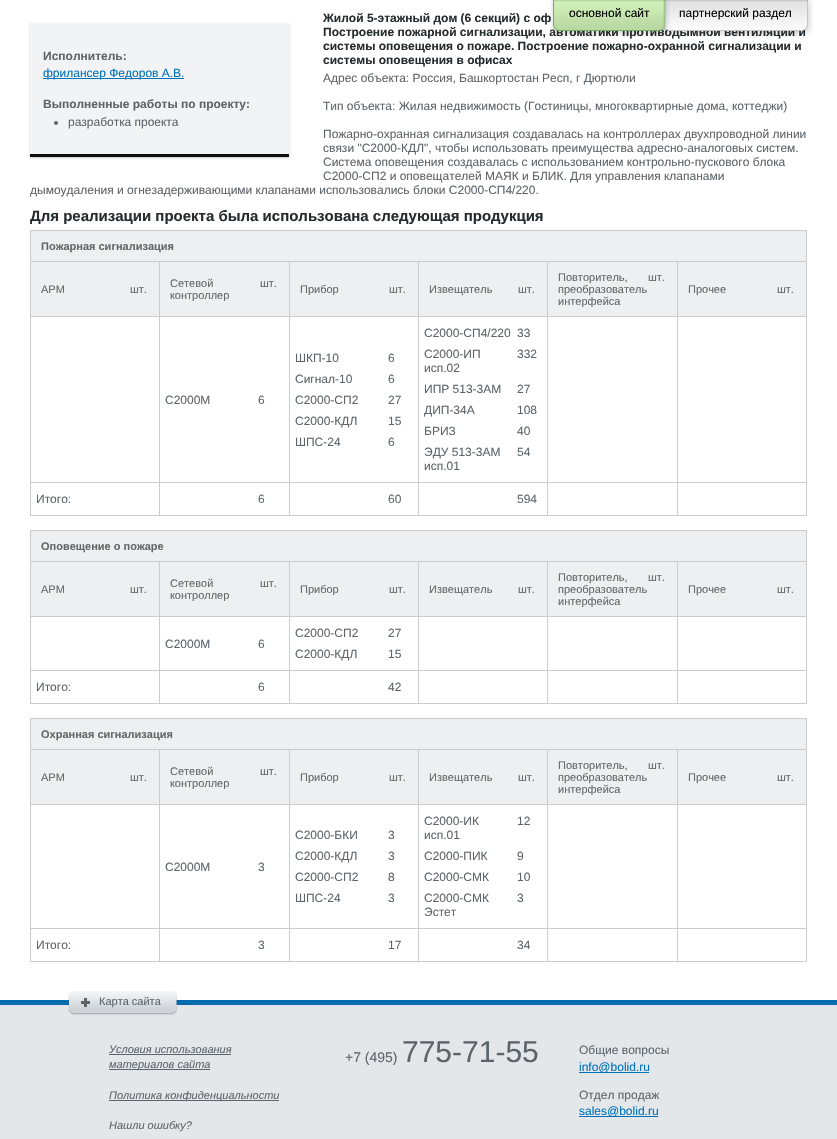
#include "include/core/SkBlurTypes.h"
#include "include/core/SkCanvas.h"
#include "include/core/SkData.h"
#include "include/core/SkFont.h"
#include "include/core/SkFontMgr.h"
#include "include/core/SkImage.h"
#include "include/core/SkMaskFilter.h"
#include "include/core/SkPaint.h"
#include "include/core/SkPathBuilder.h"
#include "include/core/SkTextBlob.h"
#include "include/effects/SkDashPathEffect.h"
#include "include/effects/SkGradientShader.h"
#include "include/utils/SkParsePath.h"

extern sk_sp<SkFontMgr> fontMgr;

static SkFont font(const char* family, int weight, float size, bool italic = false) {
    SkFontStyle style(weight, SkFontStyle::kNormal_Width,
        italic ? SkFontStyle::kItalic_Slant : SkFontStyle::kUpright_Slant);
    SkFont result(fontMgr->matchFamilyStyle(family, style), size);
    result.setSubpixel(true);
    return result;
}

static void drawLabel(SkCanvas* canvas, const char* s, float x, float y, const SkFont& font, SkColor color) {
    SkPaint ink(SkColor4f::FromColor(color));
    ink.setAntiAlias(true);
    canvas->drawString(s, x, y, font, ink);
}

static void fillRect(SkCanvas* canvas, float x, float y, float w, float h, SkColor color) {
    SkPaint ink(SkColor4f::FromColor(color));
    ink.setAntiAlias(true);
    canvas->drawRect(SkRect::MakeXYWH(x, y, w, h), ink);
}

static void drawPhoto(SkCanvas* canvas, const char* path, float x, float y, float w, float h) {
    auto image = SkImages::DeferredFromEncodedData(SkData::MakeFromFileName(path));
    canvas->drawImageRect(image, SkRect::MakeXYWH(x, y, w, h), SkSamplingOptions());
}

void draw(SkCanvas* canvas) {
    SkPaint paint;
    paint.setAntiAlias(true);
    canvas->clear(0xFFFFFFFF);
    SkFont font1 = font("Liberation Sans", 700, 12);
    drawLabel(canvas, "Построение пожарной сигнализации, автоматики противодымной вентиляции и", 323, 36, font1, 0xFF252C30);
    drawPhoto(canvas, "assets/img3.png", 796, 0, 17, 37);
    drawPhoto(canvas, "assets/img4.png", 661, 0, 136, 37);
    drawPhoto(canvas, "assets/img1.png", 652, 0, 18, 37);
    drawLabel(canvas, "Жилой 5-этажный дом (6 секций) с оф", 323, 22, font1, 0xFF252C30);
    drawPhoto(canvas, "assets/img2.png", 550, 0, 104, 37);
    SkFont font2 = font("Liberation Sans", 400, 12);
    drawLabel(canvas, "основной сайт", 569, 17, font2, 0xFF000000);
    drawLabel(canvas, "партнерский раздел", 679, 17, font2, 0xFF000000);
    drawLabel(canvas, "системы оповещения о пожаре. Построение пожарно-охранной сигнализации и", 323, 50, font1, 0xFF252C30);
    drawLabel(canvas, "системы оповещения в офисах", 323, 64, font1, 0xFF252C30);
    paint.setColor(0xFFCCCCCC);
    paint.setMaskFilter(SkMaskFilter::MakeBlur(kNormal_SkBlurStyle, 1));
    canvas->drawRect(SkRect::MakeXYWH(30, 24, 259, 134), paint);
    paint.setMaskFilter(nullptr);
    fillRect(canvas, 30, 23, 259, 131, 0xFFF2F3F5);
    fillRect(canvas, 30, 154, 259, 3, 0xFF0B0E10);
    drawLabel(canvas, "Исполнитель:", 43, 60, font1, 0xFF5E656A);
    fillRect(canvas, 43, 78, 141, 1, 0xFF0072BC);
    drawLabel(canvas, "фрилансер Федоров А.В.", 43, 77, font2, 0xFF0072BC);
    drawLabel(canvas, "Выполненные работы по проекту:", 43, 108, font1, 0xFF5E656A);
    paint.setColor(0xFF5E656A);
    canvas->drawCircle(56, 123, 2, paint);
    drawLabel(canvas, "разработка проекта", 68, 126, font2, 0xFF5E656A);
    drawLabel(canvas, "Адрес объекта: Россия, Башкортостан Респ, г Дюртюли", 323, 82, font2, 0xFF5E656A);
    drawLabel(canvas, "Тип объекта: Жилая недвижимость (Гостиницы, многоквартирные дома, коттеджи)", 323, 110, font2, 0xFF5E656A);
    drawLabel(canvas, "Пожарно-охранная сигнализация создавалась на контроллерах двухпроводной линии", 323, 138, font2, 0xFF5E656A);
    drawLabel(canvas, "связи \"С2000-КДЛ\", чтобы использовать преимущества адресно-аналоговых систем.", 323, 152, font2, 0xFF5E656A);
    drawLabel(canvas, "Система оповещения создавалась с использованием контрольно-пускового блока", 323, 166, font2, 0xFF5E656A);
    drawLabel(canvas, "С2000-СП2 и оповещателей МАЯК и БЛИК. Для управления клапанами", 323, 180, font2, 0xFF5E656A);
    drawLabel(canvas, "дымоудаления и огнезадерживающими клапанами использовались блоки С2000-СП4/220.", 30, 194, font2, 0xFF5E656A);
    SkFont font3 = font("Liberation Sans", 700, 15);
    drawLabel(canvas, "Для реализации проекта была использована следующая продукция", 30, 221, font3, 0xFF252C30);
    fillRect(canvas, 31, 231, 775, 30, 0xFFEEEFF1);
    fillRect(canvas, 30, 230, 777, 1, 0xFFCCCCCC);
    fillRect(canvas, 677, 261, 130, 1, 0xFFCCCCCC);
    fillRect(canvas, 677, 316, 130, 1, 0xFFCCCCCC);
    fillRect(canvas, 677, 482, 130, 1, 0xFFCCCCCC);
    fillRect(canvas, 806, 482, 1, 34, 0xFFCCCCCC);
    fillRect(canvas, 806, 316, 1, 167, 0xFFCCCCCC);
    fillRect(canvas, 806, 261, 1, 56, 0xFFCCCCCC);
    fillRect(canvas, 806, 230, 1, 32, 0xFFCCCCCC);
    fillRect(canvas, 677, 515, 130, 1, 0xFFCCCCCC);
    fillRect(canvas, 677, 482, 1, 34, 0xFFCCCCCC);
    fillRect(canvas, 547, 482, 131, 1, 0xFFCCCCCC);
    fillRect(canvas, 677, 316, 1, 167, 0xFFCCCCCC);
    fillRect(canvas, 547, 316, 131, 1, 0xFFCCCCCC);
    fillRect(canvas, 677, 261, 1, 56, 0xFFCCCCCC);
    fillRect(canvas, 547, 261, 131, 1, 0xFFCCCCCC);
    fillRect(canvas, 547, 515, 131, 1, 0xFFCCCCCC);
    fillRect(canvas, 547, 482, 1, 34, 0xFFCCCCCC);
    fillRect(canvas, 418, 482, 130, 1, 0xFFCCCCCC);
    fillRect(canvas, 547, 316, 1, 167, 0xFFCCCCCC);
    fillRect(canvas, 418, 316, 130, 1, 0xFFCCCCCC);
    fillRect(canvas, 547, 261, 1, 56, 0xFFCCCCCC);
    fillRect(canvas, 418, 261, 130, 1, 0xFFCCCCCC);
    fillRect(canvas, 418, 515, 130, 1, 0xFFCCCCCC);
    fillRect(canvas, 418, 482, 1, 34, 0xFFCCCCCC);
    fillRect(canvas, 289, 482, 130, 1, 0xFFCCCCCC);
    fillRect(canvas, 418, 316, 1, 167, 0xFFCCCCCC);
    fillRect(canvas, 289, 316, 130, 1, 0xFFCCCCCC);
    fillRect(canvas, 418, 261, 1, 56, 0xFFCCCCCC);
    fillRect(canvas, 289, 261, 130, 1, 0xFFCCCCCC);
    fillRect(canvas, 289, 515, 130, 1, 0xFFCCCCCC);
    fillRect(canvas, 289, 482, 1, 34, 0xFFCCCCCC);
    fillRect(canvas, 159, 482, 131, 1, 0xFFCCCCCC);
    fillRect(canvas, 289, 316, 1, 167, 0xFFCCCCCC);
    fillRect(canvas, 159, 316, 131, 1, 0xFFCCCCCC);
    fillRect(canvas, 289, 261, 1, 56, 0xFFCCCCCC);
    fillRect(canvas, 159, 261, 131, 1, 0xFFCCCCCC);
    fillRect(canvas, 159, 515, 131, 1, 0xFFCCCCCC);
    fillRect(canvas, 159, 482, 1, 34, 0xFFCCCCCC);
    fillRect(canvas, 30, 482, 130, 1, 0xFFCCCCCC);
    fillRect(canvas, 159, 316, 1, 167, 0xFFCCCCCC);
    fillRect(canvas, 30, 316, 130, 1, 0xFFCCCCCC);
    fillRect(canvas, 159, 261, 1, 56, 0xFFCCCCCC);
    fillRect(canvas, 30, 261, 130, 1, 0xFFCCCCCC);
    fillRect(canvas, 30, 515, 130, 1, 0xFFCCCCCC);
    fillRect(canvas, 30, 482, 1, 34, 0xFFCCCCCC);
    fillRect(canvas, 30, 316, 1, 167, 0xFFCCCCCC);
    fillRect(canvas, 30, 261, 1, 56, 0xFFCCCCCC);
    fillRect(canvas, 30, 230, 1, 32, 0xFFCCCCCC);
    SkFont font4 = font("Liberation Sans", 700, 11);
    drawLabel(canvas, "Пожарная сигнализация", 41, 250, font4, 0xFF666666);
    fillRect(canvas, 31, 262, 128, 54, 0xFFEEEFF1);
    SkFont font5 = font("Liberation Sans", 400, 11);
    drawLabel(canvas, "АРМ", 41, 293, font5, 0xFF666666);
    drawLabel(canvas, "шт.", 130, 293, font5, 0xFF666666);
    fillRect(canvas, 160, 262, 129, 54, 0xFFEEEFF1);
    drawLabel(canvas, "Сетевой", 170, 287, font5, 0xFF666666);
    canvas->save();
    canvas->clipRect(SkRect::MakeXYWH(170, 277, 90, 24));
    drawLabel(canvas, "контроллер", 170, 299, font5, 0xFF666666);
    canvas->restore();
    drawLabel(canvas, "шт.", 260, 287, font5, 0xFF666666);
    fillRect(canvas, 290, 262, 128, 54, 0xFFEEEFF1);
    canvas->save();
    canvas->clipRect(SkRect::MakeXYWH(300, 283, 89, 12));
    drawLabel(canvas, "Прибор", 300, 293, font5, 0xFF666666);
    canvas->restore();
    drawLabel(canvas, "шт.", 389, 293, font5, 0xFF666666);
    fillRect(canvas, 419, 262, 128, 54, 0xFFEEEFF1);
    drawLabel(canvas, "Извещатель", 429, 293, font5, 0xFF666666);
    drawLabel(canvas, "шт.", 518, 293, font5, 0xFF666666);
    fillRect(canvas, 548, 262, 129, 54, 0xFFEEEFF1);
    drawLabel(canvas, "Повторитель,", 558, 281, font5, 0xFF666666);
    drawLabel(canvas, "преобразователь", 558, 293, font5, 0xFF666666);
    canvas->save();
    canvas->clipRect(SkRect::MakeXYWH(558, 271, 89, 36));
    drawLabel(canvas, "интерфейса", 558, 305, font5, 0xFF666666);
    canvas->restore();
    drawLabel(canvas, "шт.", 648, 281, font5, 0xFF666666);
    fillRect(canvas, 678, 262, 128, 54, 0xFFEEEFF1);
    drawLabel(canvas, "Прочее", 688, 293, font5, 0xFF666666);
    drawLabel(canvas, "шт.", 777, 293, font5, 0xFF666666);
    drawLabel(canvas, "С2000М", 165, 404, font2, 0xFF5E656A);
    drawLabel(canvas, "6", 258, 404, font2, 0xFF5E656A);
    drawLabel(canvas, "ШКП-10", 295, 362, font2, 0xFF5E656A);
    drawLabel(canvas, "6", 388, 362, font2, 0xFF5E656A);
    drawLabel(canvas, "Сигнал-10", 295, 383, font2, 0xFF5E656A);
    drawLabel(canvas, "6", 388, 383, font2, 0xFF5E656A);
    drawLabel(canvas, "С2000-СП2", 295, 404, font2, 0xFF5E656A);
    drawLabel(canvas, "27", 388, 404, font2, 0xFF5E656A);
    drawLabel(canvas, "С2000-КДЛ", 295, 425, font2, 0xFF5E656A);
    drawLabel(canvas, "15", 388, 425, font2, 0xFF5E656A);
    drawLabel(canvas, "ШПС-24", 295, 446, font2, 0xFF5E656A);
    drawLabel(canvas, "6", 388, 446, font2, 0xFF5E656A);
    drawLabel(canvas, "С2000-СП4/220", 424, 337, font2, 0xFF5E656A);
    drawLabel(canvas, "33", 517, 337, font2, 0xFF5E656A);
    drawLabel(canvas, "С2000-ИП", 424, 358, font2, 0xFF5E656A);
    drawLabel(canvas, "исп.02", 424, 372, font2, 0xFF5E656A);
    drawLabel(canvas, "332", 517, 358, font2, 0xFF5E656A);
    drawLabel(canvas, "ИПР 513-3АМ", 424, 393, font2, 0xFF5E656A);
    drawLabel(canvas, "27", 517, 393, font2, 0xFF5E656A);
    drawLabel(canvas, "ДИП-34А", 424, 414, font2, 0xFF5E656A);
    drawLabel(canvas, "108", 517, 414, font2, 0xFF5E656A);
    drawLabel(canvas, "БРИЗ", 424, 435, font2, 0xFF5E656A);
    drawLabel(canvas, "40", 517, 435, font2, 0xFF5E656A);
    drawLabel(canvas, "ЭДУ 513-3АМ", 424, 456, font2, 0xFF5E656A);
    drawLabel(canvas, "исп.01", 424, 470, font2, 0xFF5E656A);
    drawLabel(canvas, "54", 517, 456, font2, 0xFF5E656A);
    drawLabel(canvas, "Итого:", 36, 503, font2, 0xFF5E656A);
    drawLabel(canvas, "6", 258, 503, font2, 0xFF5E656A);
    drawLabel(canvas, "60", 388, 503, font2, 0xFF5E656A);
    drawLabel(canvas, "594", 517, 503, font2, 0xFF5E656A);
    fillRect(canvas, 31, 531, 775, 30, 0xFFEEEFF1);
    fillRect(canvas, 30, 530, 777, 1, 0xFFCCCCCC);
    fillRect(canvas, 677, 561, 130, 1, 0xFFCCCCCC);
    fillRect(canvas, 677, 616, 130, 1, 0xFFCCCCCC);
    fillRect(canvas, 677, 670, 130, 1, 0xFFCCCCCC);
    fillRect(canvas, 806, 670, 1, 34, 0xFFCCCCCC);
    fillRect(canvas, 806, 616, 1, 55, 0xFFCCCCCC);
    fillRect(canvas, 806, 561, 1, 56, 0xFFCCCCCC);
    fillRect(canvas, 806, 530, 1, 32, 0xFFCCCCCC);
    fillRect(canvas, 677, 703, 130, 1, 0xFFCCCCCC);
    fillRect(canvas, 677, 670, 1, 34, 0xFFCCCCCC);
    fillRect(canvas, 547, 670, 131, 1, 0xFFCCCCCC);
    fillRect(canvas, 677, 616, 1, 55, 0xFFCCCCCC);
    fillRect(canvas, 547, 616, 131, 1, 0xFFCCCCCC);
    fillRect(canvas, 677, 561, 1, 56, 0xFFCCCCCC);
    fillRect(canvas, 547, 561, 131, 1, 0xFFCCCCCC);
    fillRect(canvas, 547, 703, 131, 1, 0xFFCCCCCC);
    fillRect(canvas, 547, 670, 1, 34, 0xFFCCCCCC);
    fillRect(canvas, 418, 670, 130, 1, 0xFFCCCCCC);
    fillRect(canvas, 547, 616, 1, 55, 0xFFCCCCCC);
    fillRect(canvas, 418, 616, 130, 1, 0xFFCCCCCC);
    fillRect(canvas, 547, 561, 1, 56, 0xFFCCCCCC);
    fillRect(canvas, 418, 561, 130, 1, 0xFFCCCCCC);
    fillRect(canvas, 418, 703, 130, 1, 0xFFCCCCCC);
    fillRect(canvas, 418, 670, 1, 34, 0xFFCCCCCC);
    fillRect(canvas, 289, 670, 130, 1, 0xFFCCCCCC);
    fillRect(canvas, 418, 616, 1, 55, 0xFFCCCCCC);
    fillRect(canvas, 289, 616, 130, 1, 0xFFCCCCCC);
    fillRect(canvas, 418, 561, 1, 56, 0xFFCCCCCC);
    fillRect(canvas, 289, 561, 130, 1, 0xFFCCCCCC);
    fillRect(canvas, 289, 703, 130, 1, 0xFFCCCCCC);
    fillRect(canvas, 289, 670, 1, 34, 0xFFCCCCCC);
    fillRect(canvas, 159, 670, 131, 1, 0xFFCCCCCC);
    fillRect(canvas, 289, 616, 1, 55, 0xFFCCCCCC);
    fillRect(canvas, 159, 616, 131, 1, 0xFFCCCCCC);
    fillRect(canvas, 289, 561, 1, 56, 0xFFCCCCCC);
    fillRect(canvas, 159, 561, 131, 1, 0xFFCCCCCC);
    fillRect(canvas, 159, 703, 131, 1, 0xFFCCCCCC);
    fillRect(canvas, 159, 670, 1, 34, 0xFFCCCCCC);
    fillRect(canvas, 30, 670, 130, 1, 0xFFCCCCCC);
    fillRect(canvas, 159, 616, 1, 55, 0xFFCCCCCC);
    fillRect(canvas, 30, 616, 130, 1, 0xFFCCCCCC);
    fillRect(canvas, 159, 561, 1, 56, 0xFFCCCCCC);
    fillRect(canvas, 30, 561, 130, 1, 0xFFCCCCCC);
    fillRect(canvas, 30, 703, 130, 1, 0xFFCCCCCC);
    fillRect(canvas, 30, 670, 1, 34, 0xFFCCCCCC);
    fillRect(canvas, 30, 616, 1, 55, 0xFFCCCCCC);
    fillRect(canvas, 30, 561, 1, 56, 0xFFCCCCCC);
    fillRect(canvas, 30, 530, 1, 32, 0xFFCCCCCC);
    drawLabel(canvas, "Оповещение о пожаре", 41, 550, font4, 0xFF666666);
    fillRect(canvas, 31, 562, 128, 54, 0xFFEEEFF1);
    drawLabel(canvas, "АРМ", 41, 593, font5, 0xFF666666);
    drawLabel(canvas, "шт.", 130, 593, font5, 0xFF666666);
    fillRect(canvas, 160, 562, 129, 54, 0xFFEEEFF1);
    drawLabel(canvas, "Сетевой", 170, 587, font5, 0xFF666666);
    canvas->save();
    canvas->clipRect(SkRect::MakeXYWH(170, 577, 90, 24));
    drawLabel(canvas, "контроллер", 170, 599, font5, 0xFF666666);
    canvas->restore();
    drawLabel(canvas, "шт.", 260, 587, font5, 0xFF666666);
    fillRect(canvas, 290, 562, 128, 54, 0xFFEEEFF1);
    canvas->save();
    canvas->clipRect(SkRect::MakeXYWH(300, 583, 89, 12));
    drawLabel(canvas, "Прибор", 300, 593, font5, 0xFF666666);
    canvas->restore();
    drawLabel(canvas, "шт.", 389, 593, font5, 0xFF666666);
    fillRect(canvas, 419, 562, 128, 54, 0xFFEEEFF1);
    drawLabel(canvas, "Извещатель", 429, 593, font5, 0xFF666666);
    drawLabel(canvas, "шт.", 518, 593, font5, 0xFF666666);
    fillRect(canvas, 548, 562, 129, 54, 0xFFEEEFF1);
    drawLabel(canvas, "Повторитель,", 558, 581, font5, 0xFF666666);
    drawLabel(canvas, "преобразователь", 558, 593, font5, 0xFF666666);
    canvas->save();
    canvas->clipRect(SkRect::MakeXYWH(558, 571, 89, 36));
    drawLabel(canvas, "интерфейса", 558, 605, font5, 0xFF666666);
    canvas->restore();
    drawLabel(canvas, "шт.", 648, 581, font5, 0xFF666666);
    fillRect(canvas, 678, 562, 128, 54, 0xFFEEEFF1);
    drawLabel(canvas, "Прочее", 688, 593, font5, 0xFF666666);
    drawLabel(canvas, "шт.", 777, 593, font5, 0xFF666666);
    drawLabel(canvas, "С2000М", 165, 648, font2, 0xFF5E656A);
    drawLabel(canvas, "6", 258, 648, font2, 0xFF5E656A);
    drawLabel(canvas, "С2000-СП2", 295, 637, font2, 0xFF5E656A);
    drawLabel(canvas, "27", 388, 637, font2, 0xFF5E656A);
    drawLabel(canvas, "С2000-КДЛ", 295, 658, font2, 0xFF5E656A);
    drawLabel(canvas, "15", 388, 658, font2, 0xFF5E656A);
    drawLabel(canvas, "Итого:", 36, 691, font2, 0xFF5E656A);
    drawLabel(canvas, "6", 258, 691, font2, 0xFF5E656A);
    drawLabel(canvas, "42", 388, 691, font2, 0xFF5E656A);
    fillRect(canvas, 31, 719, 775, 30, 0xFFEEEFF1);
    fillRect(canvas, 30, 718, 777, 1, 0xFFCCCCCC);
    fillRect(canvas, 677, 749, 130, 1, 0xFFCCCCCC);
    fillRect(canvas, 677, 804, 130, 1, 0xFFCCCCCC);
    fillRect(canvas, 677, 928, 130, 1, 0xFFCCCCCC);
    fillRect(canvas, 806, 928, 1, 34, 0xFFCCCCCC);
    fillRect(canvas, 806, 804, 1, 125, 0xFFCCCCCC);
    fillRect(canvas, 806, 749, 1, 56, 0xFFCCCCCC);
    fillRect(canvas, 806, 718, 1, 32, 0xFFCCCCCC);
    fillRect(canvas, 677, 961, 130, 1, 0xFFCCCCCC);
    fillRect(canvas, 677, 928, 1, 34, 0xFFCCCCCC);
    fillRect(canvas, 547, 928, 131, 1, 0xFFCCCCCC);
    fillRect(canvas, 677, 804, 1, 125, 0xFFCCCCCC);
    fillRect(canvas, 547, 804, 131, 1, 0xFFCCCCCC);
    fillRect(canvas, 677, 749, 1, 56, 0xFFCCCCCC);
    fillRect(canvas, 547, 749, 131, 1, 0xFFCCCCCC);
    fillRect(canvas, 547, 961, 131, 1, 0xFFCCCCCC);
    fillRect(canvas, 547, 928, 1, 34, 0xFFCCCCCC);
    fillRect(canvas, 418, 928, 130, 1, 0xFFCCCCCC);
    fillRect(canvas, 547, 804, 1, 125, 0xFFCCCCCC);
    fillRect(canvas, 418, 804, 130, 1, 0xFFCCCCCC);
    fillRect(canvas, 547, 749, 1, 56, 0xFFCCCCCC);
    fillRect(canvas, 418, 749, 130, 1, 0xFFCCCCCC);
    fillRect(canvas, 418, 961, 130, 1, 0xFFCCCCCC);
    fillRect(canvas, 418, 928, 1, 34, 0xFFCCCCCC);
    fillRect(canvas, 289, 928, 130, 1, 0xFFCCCCCC);
    fillRect(canvas, 418, 804, 1, 125, 0xFFCCCCCC);
    fillRect(canvas, 289, 804, 130, 1, 0xFFCCCCCC);
    fillRect(canvas, 418, 749, 1, 56, 0xFFCCCCCC);
    fillRect(canvas, 289, 749, 130, 1, 0xFFCCCCCC);
    fillRect(canvas, 289, 961, 130, 1, 0xFFCCCCCC);
    fillRect(canvas, 289, 928, 1, 34, 0xFFCCCCCC);
    fillRect(canvas, 159, 928, 131, 1, 0xFFCCCCCC);
    fillRect(canvas, 289, 804, 1, 125, 0xFFCCCCCC);
    fillRect(canvas, 159, 804, 131, 1, 0xFFCCCCCC);
    fillRect(canvas, 289, 749, 1, 56, 0xFFCCCCCC);
    fillRect(canvas, 159, 749, 131, 1, 0xFFCCCCCC);
    fillRect(canvas, 159, 961, 131, 1, 0xFFCCCCCC);
    fillRect(canvas, 159, 928, 1, 34, 0xFFCCCCCC);
    fillRect(canvas, 30, 928, 130, 1, 0xFFCCCCCC);
    fillRect(canvas, 159, 804, 1, 125, 0xFFCCCCCC);
    fillRect(canvas, 30, 804, 130, 1, 0xFFCCCCCC);
    fillRect(canvas, 159, 749, 1, 56, 0xFFCCCCCC);
    fillRect(canvas, 30, 749, 130, 1, 0xFFCCCCCC);
    fillRect(canvas, 30, 961, 130, 1, 0xFFCCCCCC);
    fillRect(canvas, 30, 928, 1, 34, 0xFFCCCCCC);
    fillRect(canvas, 30, 804, 1, 125, 0xFFCCCCCC);
    fillRect(canvas, 30, 749, 1, 56, 0xFFCCCCCC);
    fillRect(canvas, 30, 718, 1, 32, 0xFFCCCCCC);
    drawLabel(canvas, "Охранная сигнализация", 41, 738, font4, 0xFF666666);
    fillRect(canvas, 31, 750, 128, 54, 0xFFEEEFF1);
    drawLabel(canvas, "АРМ", 41, 781, font5, 0xFF666666);
    drawLabel(canvas, "шт.", 130, 781, font5, 0xFF666666);
    fillRect(canvas, 160, 750, 129, 54, 0xFFEEEFF1);
    drawLabel(canvas, "Сетевой", 170, 775, font5, 0xFF666666);
    canvas->save();
    canvas->clipRect(SkRect::MakeXYWH(170, 765, 90, 24));
    drawLabel(canvas, "контроллер", 170, 787, font5, 0xFF666666);
    canvas->restore();
    drawLabel(canvas, "шт.", 260, 775, font5, 0xFF666666);
    fillRect(canvas, 290, 750, 128, 54, 0xFFEEEFF1);
    canvas->save();
    canvas->clipRect(SkRect::MakeXYWH(300, 771, 89, 12));
    drawLabel(canvas, "Прибор", 300, 781, font5, 0xFF666666);
    canvas->restore();
    drawLabel(canvas, "шт.", 389, 781, font5, 0xFF666666);
    fillRect(canvas, 419, 750, 128, 54, 0xFFEEEFF1);
    drawLabel(canvas, "Извещатель", 429, 781, font5, 0xFF666666);
    drawLabel(canvas, "шт.", 518, 781, font5, 0xFF666666);
    fillRect(canvas, 548, 750, 129, 54, 0xFFEEEFF1);
    drawLabel(canvas, "Повторитель,", 558, 769, font5, 0xFF666666);
    drawLabel(canvas, "преобразователь", 558, 781, font5, 0xFF666666);
    canvas->save();
    canvas->clipRect(SkRect::MakeXYWH(558, 759, 89, 36));
    drawLabel(canvas, "интерфейса", 558, 793, font5, 0xFF666666);
    canvas->restore();
    drawLabel(canvas, "шт.", 648, 769, font5, 0xFF666666);
    fillRect(canvas, 678, 750, 128, 54, 0xFFEEEFF1);
    drawLabel(canvas, "Прочее", 688, 781, font5, 0xFF666666);
    drawLabel(canvas, "шт.", 777, 781, font5, 0xFF666666);
    drawLabel(canvas, "С2000М", 165, 871, font2, 0xFF5E656A);
    drawLabel(canvas, "3", 258, 871, font2, 0xFF5E656A);
    drawLabel(canvas, "С2000-БКИ", 295, 839, font2, 0xFF5E656A);
    drawLabel(canvas, "3", 388, 839, font2, 0xFF5E656A);
    drawLabel(canvas, "С2000-КДЛ", 295, 860, font2, 0xFF5E656A);
    drawLabel(canvas, "3", 388, 860, font2, 0xFF5E656A);
    drawLabel(canvas, "С2000-СП2", 295, 881, font2, 0xFF5E656A);
    drawLabel(canvas, "8", 388, 881, font2, 0xFF5E656A);
    drawLabel(canvas, "ШПС-24", 295, 902, font2, 0xFF5E656A);
    drawLabel(canvas, "3", 388, 902, font2, 0xFF5E656A);
    drawLabel(canvas, "С2000-ИК", 424, 825, font2, 0xFF5E656A);
    drawLabel(canvas, "исп.01", 424, 839, font2, 0xFF5E656A);
    drawLabel(canvas, "12", 517, 825, font2, 0xFF5E656A);
    drawLabel(canvas, "С2000-ПИК", 424, 860, font2, 0xFF5E656A);
    drawLabel(canvas, "9", 517, 860, font2, 0xFF5E656A);
    drawLabel(canvas, "С2000-СМК", 424, 881, font2, 0xFF5E656A);
    drawLabel(canvas, "10", 517, 881, font2, 0xFF5E656A);
    drawLabel(canvas, "С2000-СМК", 424, 902, font2, 0xFF5E656A);
    drawLabel(canvas, "Эстет", 424, 916, font2, 0xFF5E656A);
    drawLabel(canvas, "3", 517, 902, font2, 0xFF5E656A);
    drawLabel(canvas, "Итого:", 36, 949, font2, 0xFF5E656A);
    drawLabel(canvas, "3", 258, 949, font2, 0xFF5E656A);
    drawLabel(canvas, "17", 388, 949, font2, 0xFF5E656A);
    drawLabel(canvas, "34", 517, 949, font2, 0xFF5E656A);
    fillRect(canvas, 0, 1000, 837, 5, 0xFF046BAE);
    fillRect(canvas, 0, 1005, 837, 134, 0xFFE4E7EA);
    drawPhoto(canvas, "assets/img5.png", 68, 991, 109, 24);
    drawPhoto(canvas, "assets/img6.png", 81, 998, 9, 9);
    drawLabel(canvas, "Карта сайта", 99, 1005, font5, 0xFF5E656A);
    SkFont font6 = font("Liberation Sans", 400, 11, true);
    drawLabel(canvas, "Условия использования", 109, 1053, font6, 0xFF5E656A);
    fillRect(canvas, 109, 1054, 122, 1, 0xFF5E656A);
    fillRect(canvas, 109, 1069, 101, 1, 0xFF5E656A);
    drawLabel(canvas, "материалов сайта", 109, 1068, font6, 0xFF5E656A);
    fillRect(canvas, 109, 1100, 170, 1, 0xFF5E656A);
    drawLabel(canvas, "Политика конфиденциальности", 109, 1099, font6, 0xFF5E656A);
    drawLabel(canvas, "Нашли ошибку?", 109, 1129, font6, 0xFF5E656A);
    SkFont font7 = font("Liberation Sans", 400, 14);
    drawLabel(canvas, "+7 (495)", 345, 1062, font7, 0xFF5E656A);
    SkFont font8 = font("Liberation Sans", 400, 30);
    drawLabel(canvas, "775-71-55", 402, 1062, font8, 0xFF5E656A);
    drawLabel(canvas, "Общие вопросы", 579, 1054, font2, 0xFF5E656A);
    fillRect(canvas, 579, 1072, 70, 1, 0xFF0072BC);
    drawLabel(canvas, "info@bolid.ru", 579, 1071, font2, 0xFF0072BC);
    drawLabel(canvas, "Отдел продаж", 579, 1099, font2, 0xFF5E656A);
    fillRect(canvas, 579, 1116, 79, 1, 0xFF0072BC);
    drawLabel(canvas, "sales@bolid.ru", 579, 1115, font2, 0xFF0072BC);
}
